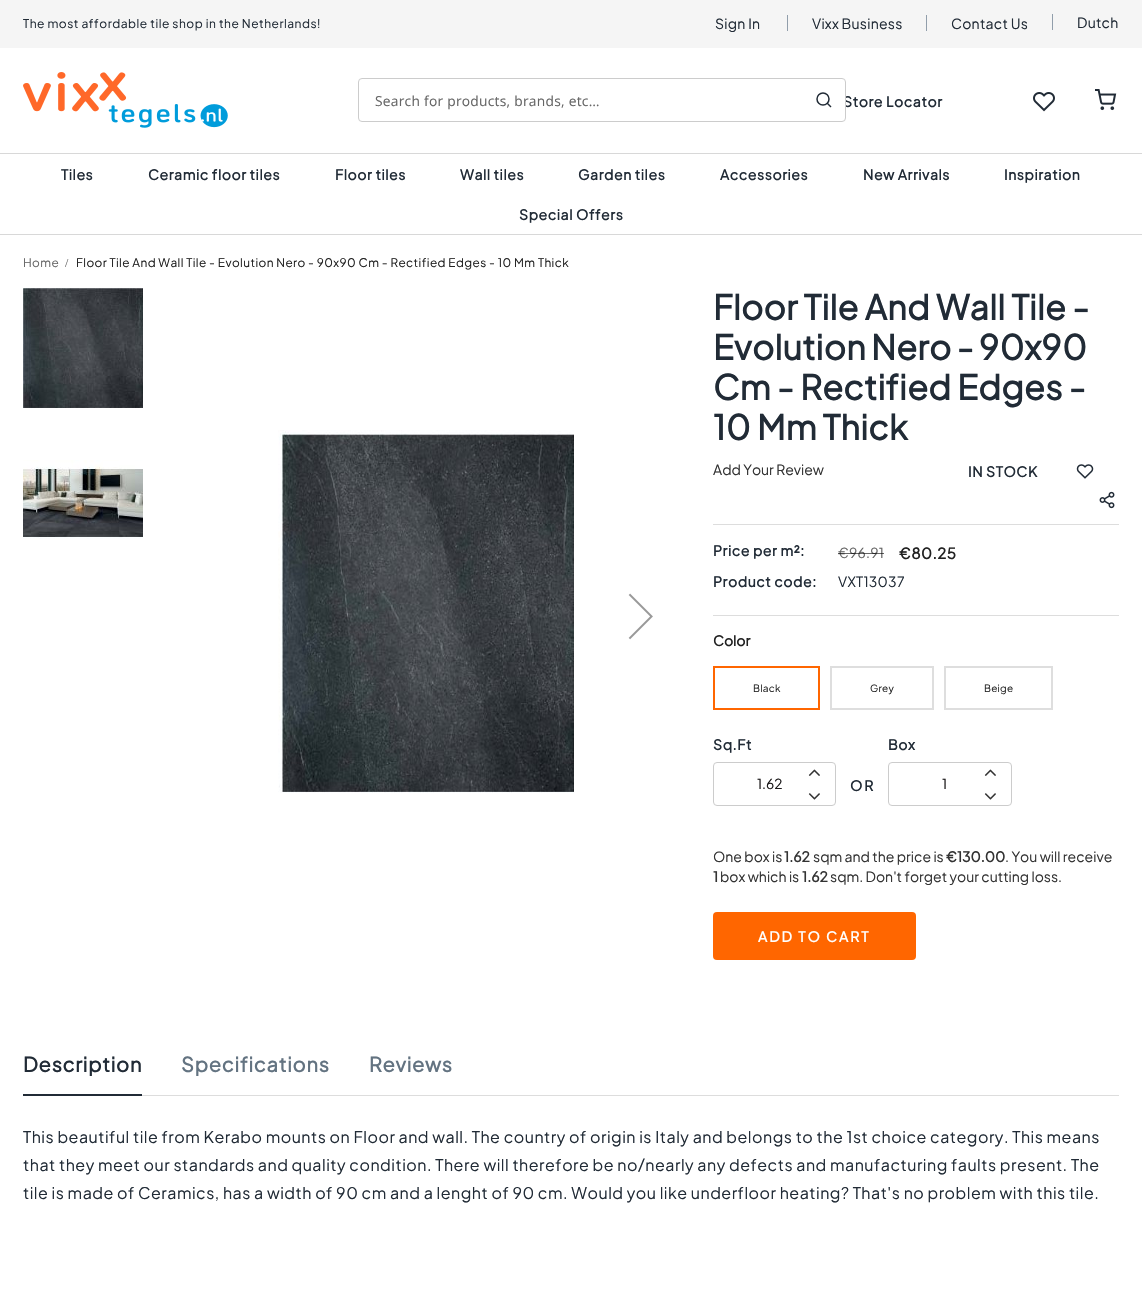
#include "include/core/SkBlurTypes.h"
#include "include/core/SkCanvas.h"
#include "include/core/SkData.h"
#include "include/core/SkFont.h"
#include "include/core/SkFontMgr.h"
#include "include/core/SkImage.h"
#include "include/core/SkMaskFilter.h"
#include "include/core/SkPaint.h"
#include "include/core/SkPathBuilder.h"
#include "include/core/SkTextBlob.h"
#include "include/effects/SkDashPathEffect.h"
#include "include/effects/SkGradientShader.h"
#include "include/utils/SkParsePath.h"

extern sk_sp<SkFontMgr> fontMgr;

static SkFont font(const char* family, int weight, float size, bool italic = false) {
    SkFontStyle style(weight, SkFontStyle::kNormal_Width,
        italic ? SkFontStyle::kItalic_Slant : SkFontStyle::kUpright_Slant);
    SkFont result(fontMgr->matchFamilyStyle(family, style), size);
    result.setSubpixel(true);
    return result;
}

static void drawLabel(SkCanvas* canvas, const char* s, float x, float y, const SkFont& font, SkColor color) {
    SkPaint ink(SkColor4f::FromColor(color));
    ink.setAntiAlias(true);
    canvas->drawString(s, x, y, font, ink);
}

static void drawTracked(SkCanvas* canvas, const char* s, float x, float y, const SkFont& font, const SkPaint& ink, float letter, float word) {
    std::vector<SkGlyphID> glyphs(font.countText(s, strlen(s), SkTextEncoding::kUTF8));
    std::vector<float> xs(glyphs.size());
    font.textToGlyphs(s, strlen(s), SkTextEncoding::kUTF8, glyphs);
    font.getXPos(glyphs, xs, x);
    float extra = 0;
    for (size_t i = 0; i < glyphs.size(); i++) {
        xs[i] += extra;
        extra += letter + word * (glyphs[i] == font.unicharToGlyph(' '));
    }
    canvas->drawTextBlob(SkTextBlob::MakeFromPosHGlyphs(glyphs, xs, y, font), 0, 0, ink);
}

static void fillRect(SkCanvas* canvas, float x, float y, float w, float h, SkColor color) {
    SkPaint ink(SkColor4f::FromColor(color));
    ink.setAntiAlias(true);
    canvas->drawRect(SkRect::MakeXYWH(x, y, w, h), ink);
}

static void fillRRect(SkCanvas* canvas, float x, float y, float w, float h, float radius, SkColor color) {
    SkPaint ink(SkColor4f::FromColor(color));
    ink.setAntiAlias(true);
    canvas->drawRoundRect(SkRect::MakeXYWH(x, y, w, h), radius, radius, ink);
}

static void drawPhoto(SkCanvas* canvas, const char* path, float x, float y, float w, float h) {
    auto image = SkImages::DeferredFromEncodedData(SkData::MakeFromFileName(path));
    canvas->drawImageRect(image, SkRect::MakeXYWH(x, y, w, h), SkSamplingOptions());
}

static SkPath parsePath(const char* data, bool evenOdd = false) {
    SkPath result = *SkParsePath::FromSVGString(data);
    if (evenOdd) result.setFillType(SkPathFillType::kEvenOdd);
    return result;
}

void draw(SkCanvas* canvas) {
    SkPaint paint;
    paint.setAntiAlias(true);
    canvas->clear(0xFFFFFFFF);
    fillRect(canvas, 0, 0, 1142, 48, 0xFFF5F5F5);
    SkFont font1 = font("Plus Jakarta Sans", 400, 12);
    paint.setColor(0xFF212B36);
    drawTracked(canvas, "The most affordable tile shop in the Netherlands!", 23, 28, font1, paint, 0.5f, 0);
    SkFont font2 = font("Plus Jakarta Sans", 400, 14);
    drawTracked(canvas, "Sign In", 715, 29, font2, paint, 0.25f, 0);
    fillRect(canvas, 787, 15, 1, 16, 0xFF919EAB);
    drawTracked(canvas, "Vixx Business", 812, 29, font2, paint, 0.25f, 0);
    fillRect(canvas, 926, 15, 1, 16, 0xFF919EAB);
    drawTracked(canvas, "Contact Us", 951, 29, font2, paint, 0.25f, 0);
    fillRect(canvas, 1052, 14, 1, 16, 0xFF919EAB);
    drawTracked(canvas, "Dutch", 1077, 28, font2, paint, 0.25f, 0);
    drawPhoto(canvas, "assets/img1.png", 23, 72, 205, 56);
    SkFont font3 = font("Plus Jakarta Sans", 700, 14);
    drawTracked(canvas, "Store Locator", 843, 107, font3, paint, 0.6f, 0);
    paint.setColor(0xFFFFFFFF);
    canvas->drawRoundRect(SkRect::MakeXYWH(358.5f, 78.5f, 487, 43), 3.5f, 3.5f, paint);
    paint.setStroke(true);
    paint.setStrokeWidth(1);
    paint.setColor(0xFFCCCCCC);
    canvas->drawRoundRect(SkRect::MakeXYWH(358.5f, 78.5f, 487, 43), 3.5f, 3.5f, paint);
    SkFont font4 = font("Open Sans", 400, 13.8f);
    paint.setStroke(false);
    paint.setColor(0xFF666666);
    drawTracked(canvas, "Search for products, brands, etc…", 375, 106, font4, paint, 0.25f, 0);
    paint.setStroke(true);
    paint.setStrokeWidth(1.5f);
    paint.setColor(0xFF212B36);
    canvas->drawCircle(823, 99, 6, paint);
    canvas->drawPath(parsePath("M831 107L827 103"), paint);
    drawPhoto(canvas, "assets/img2.png", 1033, 92, 22, 20);
    drawPhoto(canvas, "assets/img3.png", 1095, 89, 22, 22);
    fillRect(canvas, 0, 153, 1142, 1, 0xFFD8D8D8);
    fillRect(canvas, 0, 234, 1142, 1, 0xFFD8D8D8);
    paint.setStroke(false);
    drawTracked(canvas, "Tiles", 61, 180, font3, paint, 0.6f, 0);
    drawTracked(canvas, "Ceramic floor tiles", 148, 180, font3, paint, 0.6f, 0);
    drawTracked(canvas, "Floor tiles", 335, 180, font3, paint, 0.6f, 0);
    drawTracked(canvas, "Wall tiles", 460, 180, font3, paint, 0.6f, 0);
    drawTracked(canvas, "Garden tiles", 578, 180, font3, paint, 0.6f, 0);
    drawTracked(canvas, "Accessories", 720, 180, font3, paint, 0.6f, 0);
    drawTracked(canvas, "New Arrivals", 863, 180, font3, paint, 0.6f, 0);
    drawTracked(canvas, "Inspiration", 1004, 180, font3, paint, 0.6f, 0);
    drawTracked(canvas, "Special Offers", 519, 220, font3, paint, 0.6f, 0);
    SkFont font5 = font("Plus Jakarta Sans", 400, 11.85f);
    paint.setColor(0xFF666666);
    drawTracked(canvas, "Home", 23, 267, font5, paint, 0.4f, 0);
    SkFont font6 = font("Liberation Serif", 400, 12);
    drawLabel(canvas, "/", 65, 267, font6, 0xFF666666);
    paint.setColor(0xFF212121);
    drawTracked(canvas, "Floor Tile And Wall Tile - Evolution Nero - 90x90 Cm - Rectified Edges - 10 Mm Thick", 76, 267, font5, paint, 0.4f, 0);
    drawPhoto(canvas, "assets/img4.png", 23, 288, 120, 120);
    drawPhoto(canvas, "assets/img5.png", 23, 460, 120, 79);
    drawPhoto(canvas, "assets/img6.png", 278, 430, 296, 363);
    drawPhoto(canvas, "assets/img7.png", 628, 593, 25, 47);
    SkFont font7 = font("Plus Jakarta Sans", 700, 34);
    paint.setColor(0xFF212B36);
    drawTracked(canvas, "Floor Tile And Wall Tile -", 713, 320, font7, paint, 0.25f, 0);
    drawTracked(canvas, "Evolution Nero - 90x90", 713, 360, font7, paint, 0.25f, -1);
    drawTracked(canvas, "Cm - Rectified Edges -", 713, 400, font7, paint, 0.25f, 0);
    drawTracked(canvas, "10 Mm Thick", 713, 440, font7, paint, 0.25f, 0);
    drawLabel(canvas, "Add Your Review", 713, 475, font2, 0xFF333333);
    drawTracked(canvas, "IN STOCK", 968, 477, font3, paint, 0.6f, 0);
    drawPhoto(canvas, "assets/img8.png", 1076, 464, 18, 15);
    drawPhoto(canvas, "assets/img9.png", 1099, 491, 16, 18);
    fillRect(canvas, 713, 524, 406, 1, 0xFFDDDDDD);
    fillRect(canvas, 713, 615, 406, 1, 0xFFDDDDDD);
    drawTracked(canvas, "Price per m²:", 713, 556, font3, paint, 0.6f, 0);
    SkFont font8 = font("Plus Jakarta Sans", 400, 13.8f);
    paint.setColor(0xFF666666);
    drawTracked(canvas, "€96.91", 838, 558, font8, paint, 0.25f, 0);
    fillRect(canvas, 838, 553, 46, 1, 0x99000000);
    SkFont font9 = font("Plus Jakarta Sans", 700, 15);
    paint.setColor(0xFF212121);
    drawTracked(canvas, "€80.25", 899, 559, font9, paint, 0.5f, 0);
    paint.setColor(0xFF212B36);
    drawTracked(canvas, "Product code:", 713, 587, font3, paint, 0.6f, 0);
    drawTracked(canvas, "VXT13037", 838, 587, font2, paint, 0.25f, 0);
    drawLabel(canvas, "Color", 713, 646, font3, 0xFF212121);
    paint.setStroke(true);
    paint.setStrokeWidth(2);
    paint.setColor(0xFFFF6600);
    canvas->drawRect(SkRect::MakeXYWH(714, 667, 105, 42), paint);
    SkFont font10 = font("Plus Jakarta Sans", 400, 10);
    paint.setStroke(false);
    paint.setColor(0xFF212121);
    drawTracked(canvas, "Black", 753, 692, font10, paint, 0.25f, 0);
    paint.setStroke(true);
    paint.setColor(0xFFDEDEDE);
    canvas->drawRect(SkRect::MakeXYWH(831, 667, 102, 42), paint);
    paint.setStroke(false);
    paint.setColor(0xFF212121);
    drawTracked(canvas, "Grey", 870, 692, font10, paint, 0.25f, 0);
    paint.setStroke(true);
    paint.setColor(0xFFDEDEDE);
    canvas->drawRect(SkRect::MakeXYWH(945, 667, 107, 42), paint);
    paint.setStroke(false);
    paint.setColor(0xFF212121);
    drawTracked(canvas, "Beige", 984, 692, font10, paint, 0.25f, 0);
    paint.setColor(0xFF212B36);
    drawTracked(canvas, "Sq.Ft", 713, 750, font3, paint, 0.6f, 0);
    paint.setStroke(true);
    paint.setStrokeWidth(1);
    paint.setColor(0xFFCCCCCC);
    canvas->drawRoundRect(SkRect::MakeXYWH(713.5f, 762.5f, 122, 43), 3.5f, 3.5f, paint);
    drawPhoto(canvas, "assets/img10.png", 808, 769, 12, 7);
    drawLabel(canvas, "1.62", 757, 789, font8, 0xFF1B191A);
    drawPhoto(canvas, "assets/img11.png", 808, 793, 12, 7);
    paint.setStroke(false);
    paint.setColor(0xFF212B36);
    drawTracked(canvas, "OR", 850, 791, font3, paint, 2, 0);
    drawTracked(canvas, "Box", 888, 750, font3, paint, 0.6f, 0);
    paint.setStroke(true);
    paint.setColor(0xFFCCCCCC);
    canvas->drawRoundRect(SkRect::MakeXYWH(888.5f, 762.5f, 123, 43), 3.5f, 3.5f, paint);
    drawPhoto(canvas, "assets/img10.png", 984, 769, 12, 7);
    drawLabel(canvas, "1", 942, 789, font8, 0xFF1B191A);
    drawPhoto(canvas, "assets/img11.png", 984, 793, 12, 7);
    drawLabel(canvas, "One box is", 713, 862, font2, 0xFF333333);
    drawLabel(canvas, "1.62", 784, 862, font3, 0xFF333333);
    drawLabel(canvas, "sqm and the price is", 813, 862, font2, 0xFF333333);
    drawLabel(canvas, "€130.00", 946, 862, font3, 0xFF333333);
    drawLabel(canvas, ". You will receive", 1005, 862, font2, 0xFF333333);
    drawLabel(canvas, "1", 713, 882, font3, 0xFF333333);
    drawLabel(canvas, "box which is", 720, 882, font2, 0xFF333333);
    drawLabel(canvas, "1.62", 802, 882, font3, 0xFF333333);
    drawLabel(canvas, "sqm. Don't forget your cutting loss.", 830, 882, font2, 0xFF333333);
    fillRRect(canvas, 713, 912, 203, 48, 4, 0xFFFF6600);
    paint.setStroke(false);
    paint.setColor(0xFFFFFFFF);
    drawTracked(canvas, "ADD TO CART", 758, 942, font3, paint, 2, 0);
    fillRect(canvas, 23, 1094, 119, 2, 0xFF212B36);
    SkFont font11 = font("Plus Jakarta Sans", 700, 20);
    paint.setColor(0xFF212B36);
    drawTracked(canvas, "Description", 23, 1072, font11, paint, 0.75f, 0);
    paint.setColor(0xFF637381);
    drawTracked(canvas, "Specifications", 181, 1072, font11, paint, 0.75f, 0);
    drawTracked(canvas, "Reviews", 369, 1072, font11, paint, 0.75f, 0);
    fillRect(canvas, 142, 1095, 977, 1, 0xFFDDDDDD);
    SkFont font12 = font("Plus Jakarta Sans", 400, 16);
    paint.setColor(0xFF212B36);
    drawTracked(canvas, "This beautiful tile from Kerabo mounts on Floor and wall. The country of origin is Italy and belongs to the 1st choice category. This means", 23, 1143, font12, paint, 0.5f, 0);
    drawTracked(canvas, "that they meet our standards and quality condition. There will therefore be no/nearly any defects and manufacturing faults present. The", 23, 1171, font12, paint, 0.5f, 0);
    drawTracked(canvas, "tile is made of Ceramics, has a width of 90 cm and a lenght of 90 cm. Would you like underfloor heating? That's no problem with this tile.", 23, 1199, font12, paint, 0.5f, 0);
}
